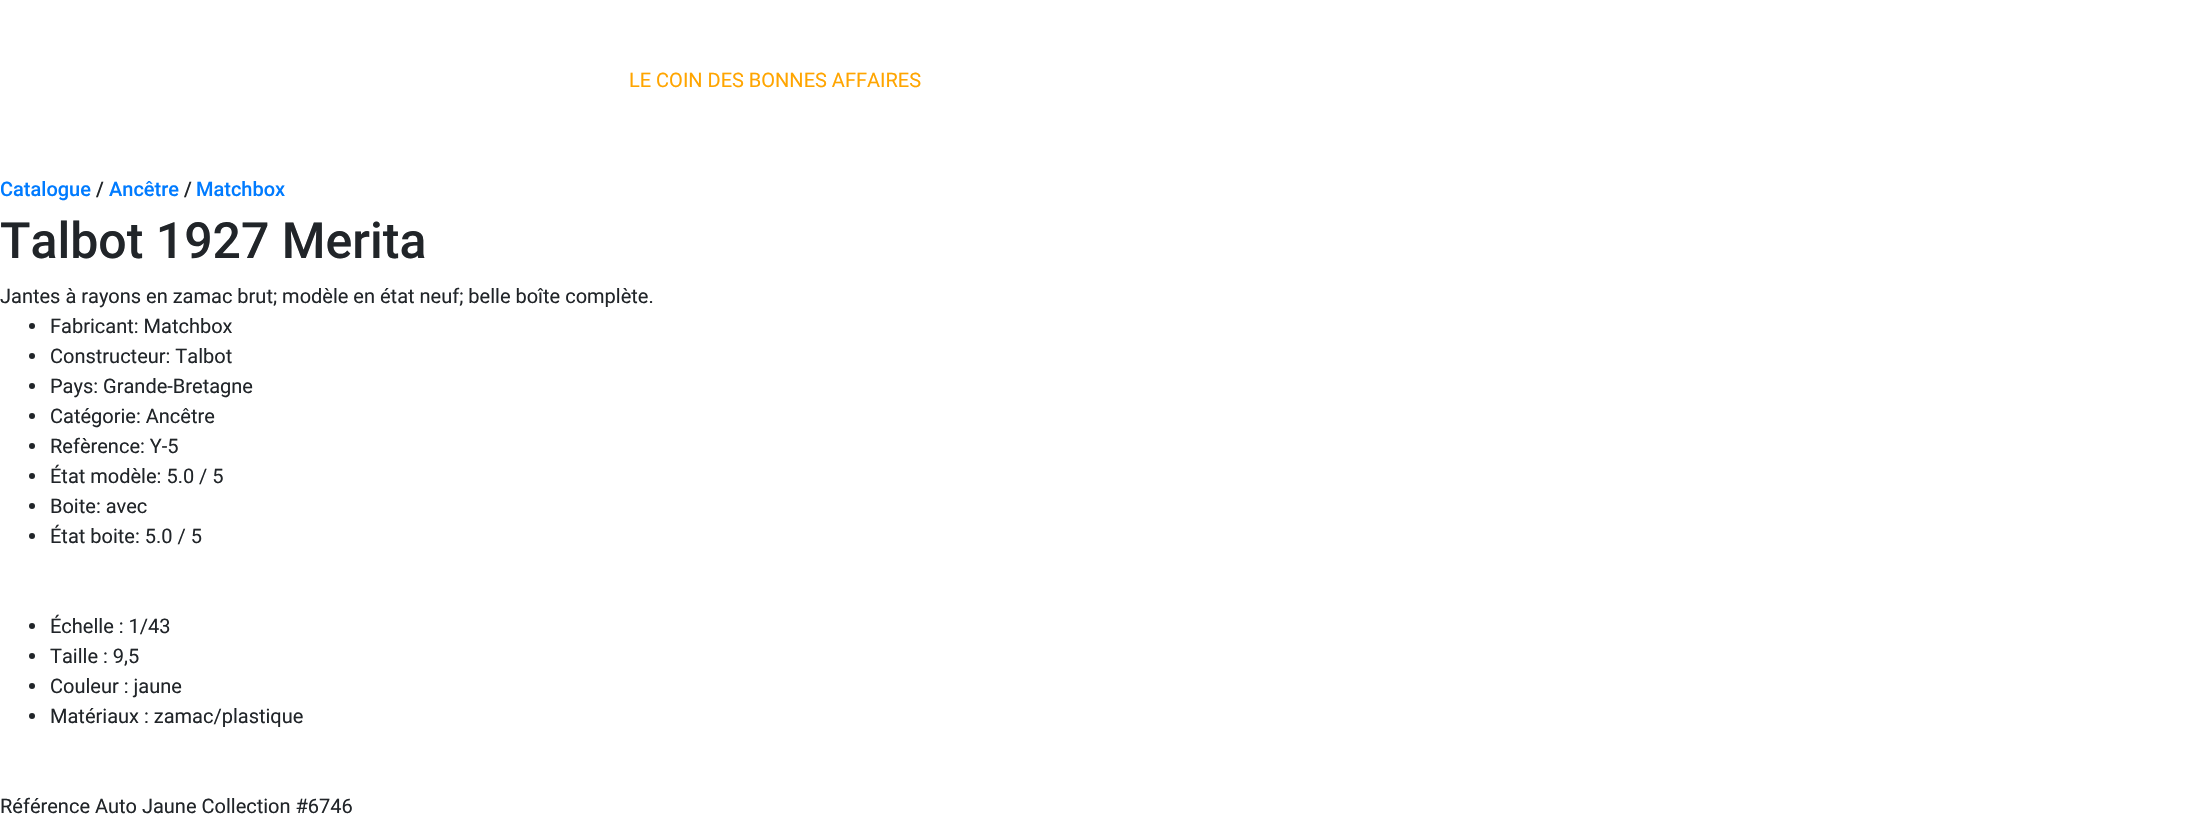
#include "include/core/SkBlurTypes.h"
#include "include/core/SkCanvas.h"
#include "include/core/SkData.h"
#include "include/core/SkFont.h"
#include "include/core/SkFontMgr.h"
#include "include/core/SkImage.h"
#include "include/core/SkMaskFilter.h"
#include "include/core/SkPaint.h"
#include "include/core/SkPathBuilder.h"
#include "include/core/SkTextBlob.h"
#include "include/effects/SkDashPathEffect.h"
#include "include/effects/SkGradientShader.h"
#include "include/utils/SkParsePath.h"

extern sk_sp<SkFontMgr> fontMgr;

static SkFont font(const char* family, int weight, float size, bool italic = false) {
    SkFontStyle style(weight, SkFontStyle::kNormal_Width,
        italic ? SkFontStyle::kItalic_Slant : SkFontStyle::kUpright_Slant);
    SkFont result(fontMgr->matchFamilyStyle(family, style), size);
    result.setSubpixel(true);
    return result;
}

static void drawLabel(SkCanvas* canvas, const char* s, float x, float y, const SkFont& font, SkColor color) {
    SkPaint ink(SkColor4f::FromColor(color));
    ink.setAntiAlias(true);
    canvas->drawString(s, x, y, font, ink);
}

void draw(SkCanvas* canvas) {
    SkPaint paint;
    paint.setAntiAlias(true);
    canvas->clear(0xFFFFFFFF);
    SkFont font1 = font("Roboto", 400, 20);
    drawLabel(canvas, "LE COIN DES BONNES AFFAIRES", 629, 87, font1, 0xFFFFA500);
    SkFont font2 = font("Roboto", 500, 20);
    drawLabel(canvas, "Catalogue", 0, 196, font2, 0xFF007BFF);
    drawLabel(canvas, "/", 96, 196, font2, 0xFF212529);
    drawLabel(canvas, "Ancêtre", 109, 196, font2, 0xFF007BFF);
    drawLabel(canvas, "/", 184, 196, font2, 0xFF212529);
    drawLabel(canvas, "Matchbox", 196, 196, font2, 0xFF007BFF);
    SkFont font3 = font("Roboto", 500, 50);
    drawLabel(canvas, "Talbot 1927 Merita", 0, 258, font3, 0xFF212529);
    drawLabel(canvas, "Jantes à rayons en zamac brut; modèle en état neuf; belle boîte complète.", 0, 303, font1, 0xFF212529);
    paint.setColor(0xFF212529);
    canvas->drawCircle(32, 326, 3, paint);
    drawLabel(canvas, "Fabricant: Matchbox", 50, 333, font1, 0xFF212529);
    canvas->drawCircle(32, 356, 3, paint);
    drawLabel(canvas, "Constructeur: Talbot", 50, 363, font1, 0xFF212529);
    canvas->drawCircle(32, 386, 3, paint);
    drawLabel(canvas, "Pays: Grande-Bretagne", 50, 393, font1, 0xFF212529);
    canvas->drawCircle(32, 416, 3, paint);
    drawLabel(canvas, "Catégorie: Ancêtre", 50, 423, font1, 0xFF212529);
    canvas->drawCircle(32, 446, 3, paint);
    drawLabel(canvas, "Refèrence: Y-5", 50, 453, font1, 0xFF212529);
    canvas->drawCircle(32, 476, 3, paint);
    drawLabel(canvas, "État modèle: 5.0 / 5", 50, 483, font1, 0xFF212529);
    canvas->drawCircle(32, 506, 3, paint);
    drawLabel(canvas, "Boite: avec", 50, 513, font1, 0xFF212529);
    canvas->drawCircle(32, 536, 3, paint);
    drawLabel(canvas, "État boite: 5.0 / 5", 50, 543, font1, 0xFF212529);
    canvas->drawCircle(32, 626, 3, paint);
    drawLabel(canvas, "Échelle : 1/43", 50, 633, font1, 0xFF212529);
    canvas->drawCircle(32, 656, 3, paint);
    drawLabel(canvas, "Taille : 9,5", 50, 663, font1, 0xFF212529);
    canvas->drawCircle(32, 686, 3, paint);
    drawLabel(canvas, "Couleur : jaune", 50, 693, font1, 0xFF212529);
    canvas->drawCircle(32, 716, 3, paint);
    drawLabel(canvas, "Matériaux : zamac/plastique", 50, 723, font1, 0xFF212529);
    drawLabel(canvas, "Référence Auto Jaune Collection #6746", 0, 813, font1, 0xFF212529);
}
